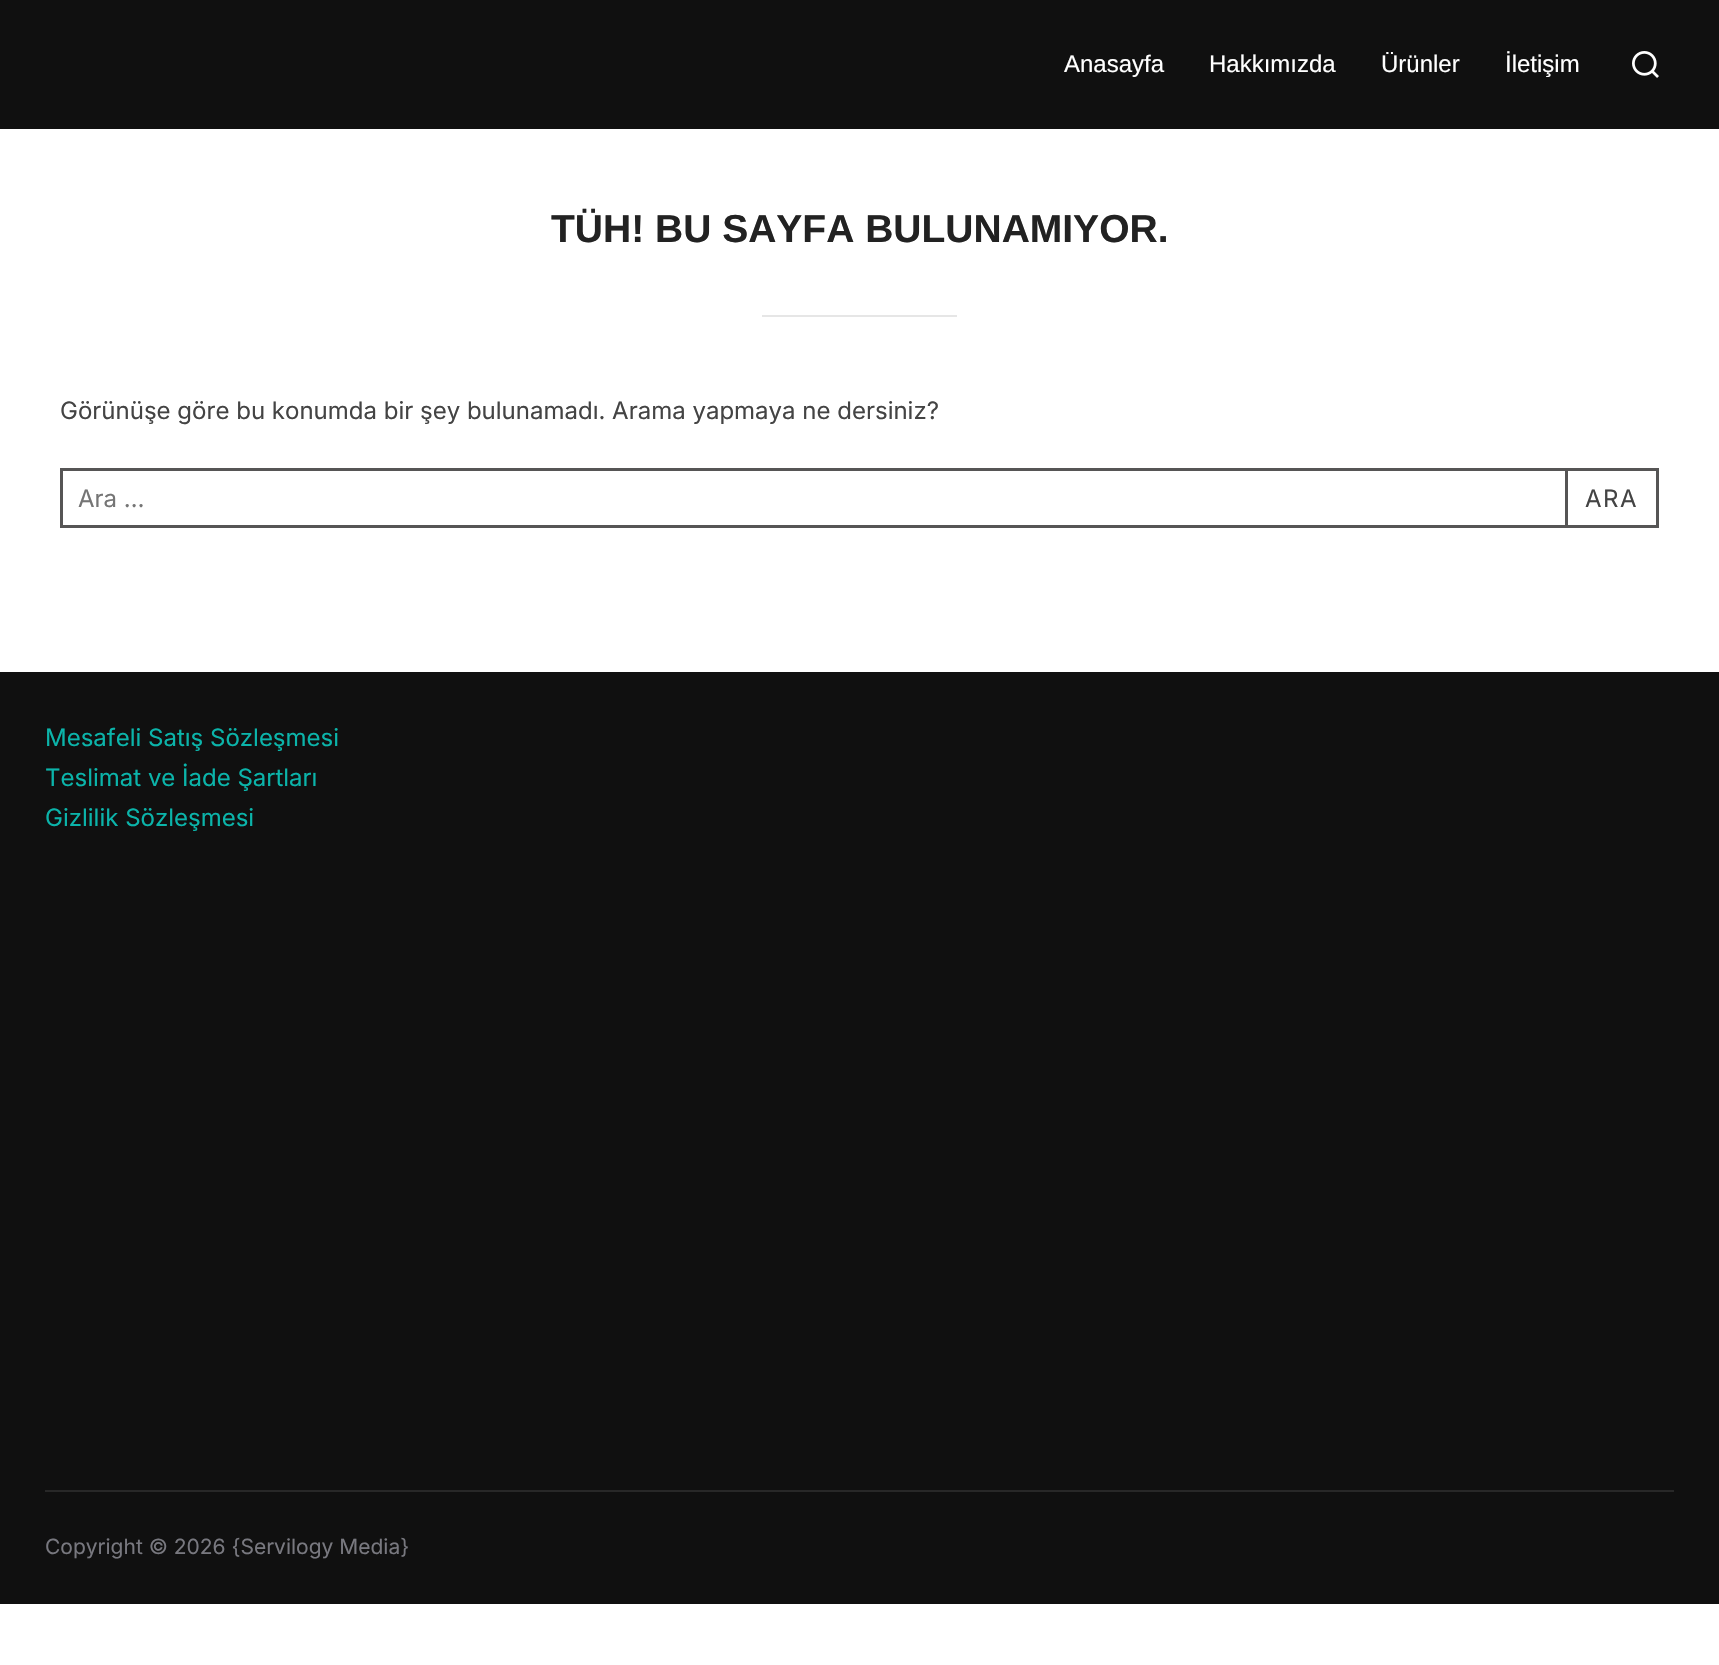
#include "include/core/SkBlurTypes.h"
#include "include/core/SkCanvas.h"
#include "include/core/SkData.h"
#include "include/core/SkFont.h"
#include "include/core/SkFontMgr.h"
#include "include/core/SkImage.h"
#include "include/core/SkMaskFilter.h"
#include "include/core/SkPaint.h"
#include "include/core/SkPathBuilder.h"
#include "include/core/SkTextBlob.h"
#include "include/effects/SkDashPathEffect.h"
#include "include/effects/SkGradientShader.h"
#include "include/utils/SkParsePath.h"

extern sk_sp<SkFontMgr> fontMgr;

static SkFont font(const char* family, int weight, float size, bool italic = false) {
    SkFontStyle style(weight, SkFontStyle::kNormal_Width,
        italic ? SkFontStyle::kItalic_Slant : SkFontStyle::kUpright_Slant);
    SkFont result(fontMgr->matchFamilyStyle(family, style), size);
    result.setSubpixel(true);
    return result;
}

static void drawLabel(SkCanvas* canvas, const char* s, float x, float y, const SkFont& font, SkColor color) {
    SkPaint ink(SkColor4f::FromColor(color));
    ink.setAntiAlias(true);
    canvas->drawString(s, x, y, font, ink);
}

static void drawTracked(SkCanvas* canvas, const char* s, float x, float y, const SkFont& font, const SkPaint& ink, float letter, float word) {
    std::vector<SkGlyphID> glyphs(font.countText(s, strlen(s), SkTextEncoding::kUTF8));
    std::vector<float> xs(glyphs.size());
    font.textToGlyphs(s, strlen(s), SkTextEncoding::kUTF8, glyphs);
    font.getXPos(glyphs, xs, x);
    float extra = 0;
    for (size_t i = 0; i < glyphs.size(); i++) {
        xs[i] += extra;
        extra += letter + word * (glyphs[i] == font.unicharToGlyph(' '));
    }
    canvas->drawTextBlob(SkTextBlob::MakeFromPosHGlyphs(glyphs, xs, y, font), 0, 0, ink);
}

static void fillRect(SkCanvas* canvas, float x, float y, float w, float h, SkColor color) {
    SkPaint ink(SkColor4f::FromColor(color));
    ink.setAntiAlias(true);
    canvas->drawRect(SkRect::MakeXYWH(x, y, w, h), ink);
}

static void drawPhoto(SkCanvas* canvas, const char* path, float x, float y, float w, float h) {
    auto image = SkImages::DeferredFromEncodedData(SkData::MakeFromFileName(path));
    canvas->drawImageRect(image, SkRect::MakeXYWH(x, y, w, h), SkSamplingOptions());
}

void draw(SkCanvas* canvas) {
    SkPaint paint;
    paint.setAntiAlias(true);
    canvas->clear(0xFFFFFFFF);
    fillRect(canvas, 0, 0, 1719, 129, 0xFF101010);
    SkFont font1 = font("Liberation Sans", 400, 24);
    drawLabel(canvas, "Anasayfa", 1064, 72, font1, 0xFFFFFFFF);
    drawLabel(canvas, "Hakkımızda", 1209, 72, font1, 0xFFFFFFFF);
    drawLabel(canvas, "Ürünler", 1381, 72, font1, 0xFFFFFFFF);
    drawLabel(canvas, "İletişim", 1505, 72, font1, 0xFFFFFFFF);
    drawPhoto(canvas, "assets/img1.png", 1632, 51, 27, 27);
    SkFont font2 = font("Liberation Sans", 700, 39);
    drawLabel(canvas, "TÜH! BU SAYFA BULUNAMIYOR.", 551, 242, font2, 0xFF222222);
    fillRect(canvas, 762, 315, 195, 2, 0xFFE6E6E6);
    SkFont font3 = font("Inter", 400, 24);
    drawLabel(canvas, "Görünüşe göre bu konumda bir şey bulunamadı. Arama yapmaya ne dersiniz?", 60, 419, font3, 0xFF444444);
    paint.setStroke(true);
    paint.setStrokeWidth(3);
    paint.setColor(0xFF565555);
    canvas->drawRect(SkRect::MakeXYWH(61.5f, 469.5f, 1596, 57), paint);
    drawLabel(canvas, "Ara …", 78, 507, font3, 0xFF757575);
    canvas->drawRect(SkRect::MakeXYWH(1566.5f, 469.5f, 91, 57), paint);
    paint.setStroke(false);
    paint.setColor(0xFF444444);
    drawTracked(canvas, "ARA", 1585, 507, font3, paint, 1.5f, 0);
    fillRect(canvas, 0, 672, 1719, 932, 0xFF101010);
    drawLabel(canvas, "Mesafeli Satış Sözleşmesi", 45, 746, font3, 0xFF0BB4AA);
    drawLabel(canvas, "Teslimat ve İade Şartları", 45, 786, font3, 0xFF0BB4AA);
    drawLabel(canvas, "Gizlilik Sözleşmesi", 45, 826, font3, 0xFF0BB4AA);
    fillRect(canvas, 45, 1490, 1629, 2, 0xFF282828);
    SkFont font4 = font("Inter", 400, 21);
    drawLabel(canvas, "Copyright © 2026 {Servilogy Media}", 45, 1554, font4, 0xFF78787F);
}
